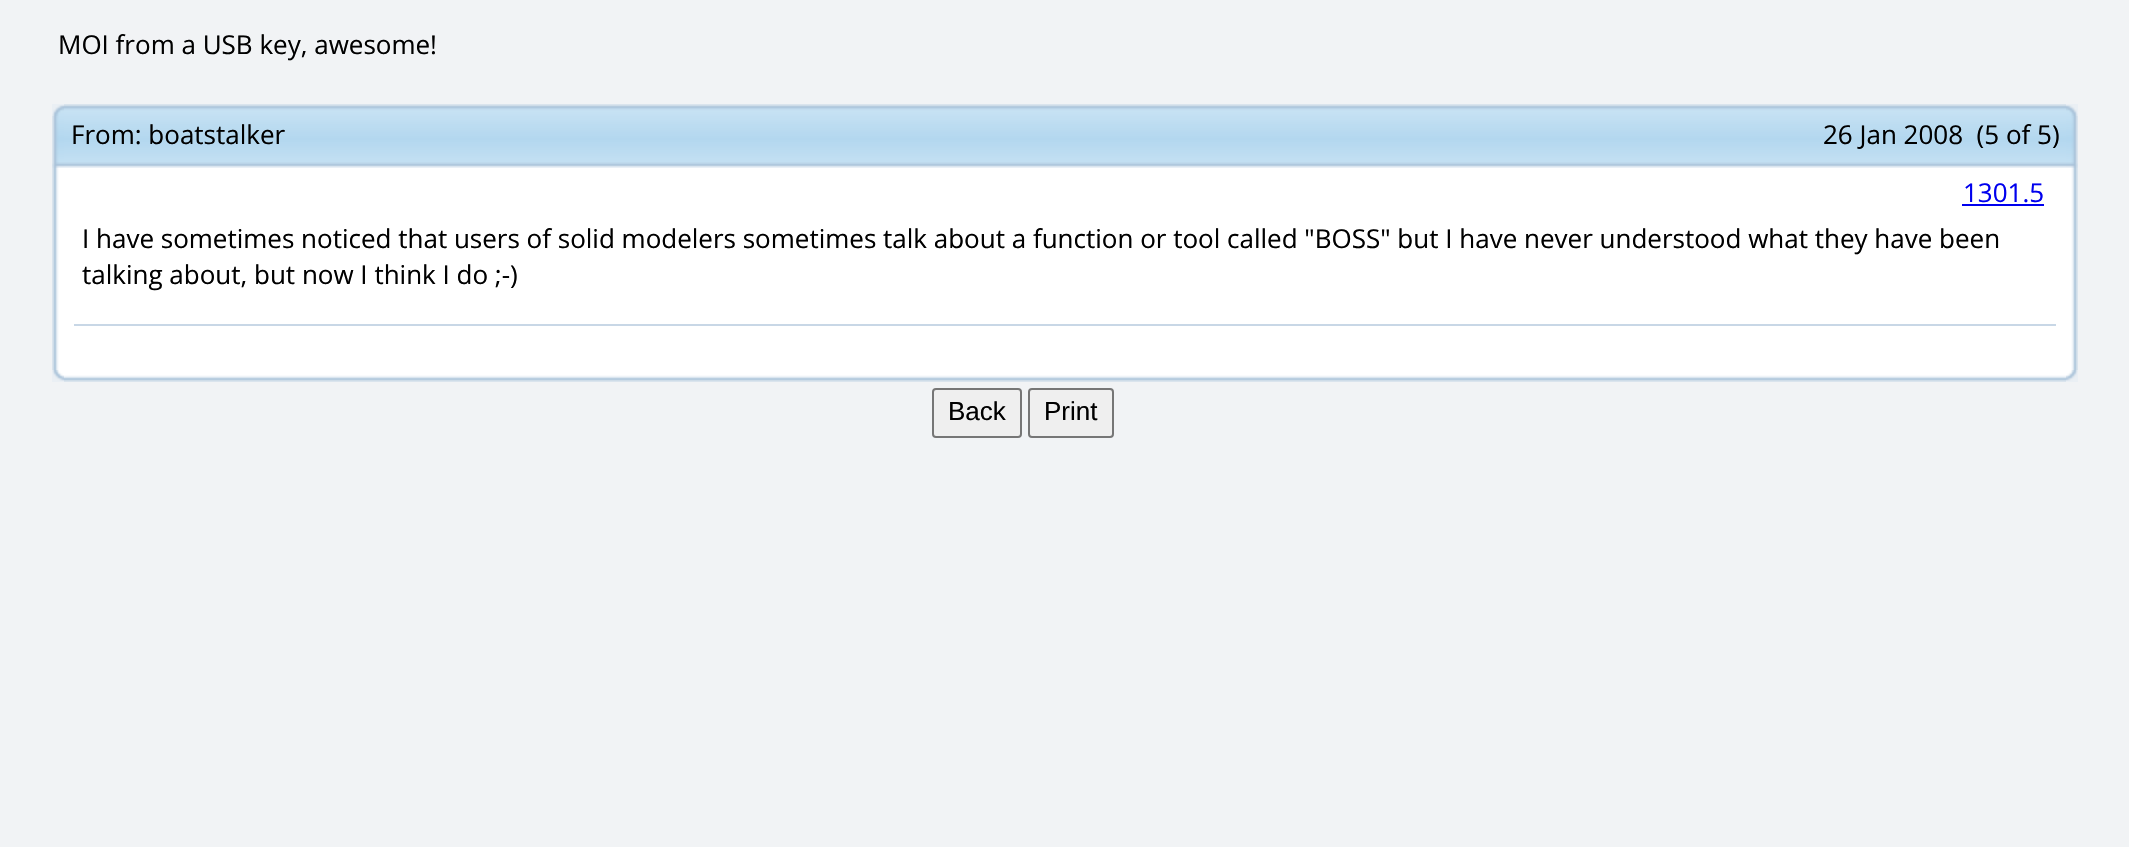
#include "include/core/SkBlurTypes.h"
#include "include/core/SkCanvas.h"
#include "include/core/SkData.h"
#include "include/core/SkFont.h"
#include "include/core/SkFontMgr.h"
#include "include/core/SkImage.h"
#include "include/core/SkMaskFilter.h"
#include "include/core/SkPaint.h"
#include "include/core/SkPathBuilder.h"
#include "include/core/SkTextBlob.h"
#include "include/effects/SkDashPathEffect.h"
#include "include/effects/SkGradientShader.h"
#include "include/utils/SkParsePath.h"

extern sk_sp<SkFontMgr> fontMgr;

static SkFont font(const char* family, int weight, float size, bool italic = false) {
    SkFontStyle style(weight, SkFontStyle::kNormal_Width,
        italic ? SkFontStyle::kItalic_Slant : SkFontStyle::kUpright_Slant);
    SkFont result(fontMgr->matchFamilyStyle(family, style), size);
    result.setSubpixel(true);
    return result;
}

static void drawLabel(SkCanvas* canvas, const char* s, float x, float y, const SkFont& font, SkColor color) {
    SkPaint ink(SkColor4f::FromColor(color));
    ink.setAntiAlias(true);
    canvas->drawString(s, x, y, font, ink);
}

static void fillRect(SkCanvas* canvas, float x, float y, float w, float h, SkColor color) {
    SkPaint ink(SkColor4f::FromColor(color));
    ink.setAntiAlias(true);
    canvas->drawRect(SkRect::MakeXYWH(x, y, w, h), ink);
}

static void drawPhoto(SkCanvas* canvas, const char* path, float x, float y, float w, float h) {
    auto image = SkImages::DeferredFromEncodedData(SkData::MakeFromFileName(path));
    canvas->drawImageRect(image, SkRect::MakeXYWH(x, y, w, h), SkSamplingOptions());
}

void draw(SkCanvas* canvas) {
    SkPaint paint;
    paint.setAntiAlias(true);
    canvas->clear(0xFFF1F3F5);
    SkFont font1 = font("Open Sans", 400, 26);
    drawLabel(canvas, "MOI from a USB key, awesome!", 58, 54, font1, 0xFF000000);
    drawPhoto(canvas, "assets/img1.png", 52, 104, 12, 12);
    drawPhoto(canvas, "assets/img2.png", 64, 104, 2002, 12);
    drawPhoto(canvas, "assets/img3.png", 2066, 104, 12, 12);
    drawPhoto(canvas, "assets/img4.png", 52, 116, 12, 46);
    drawPhoto(canvas, "assets/img5.png", 64, 116, 2002, 46);
    drawLabel(canvas, "From: boatstalker", 71, 144, font1, 0xFF000000);
    drawLabel(canvas, "26 Jan 2008  (5 of 5)", 1823, 144, font1, 0xFF000000);
    drawPhoto(canvas, "assets/img6.png", 2066, 116, 12, 46);
    drawPhoto(canvas, "assets/img7.png", 52, 162, 12, 6);
    drawPhoto(canvas, "assets/img8.png", 64, 162, 2002, 6);
    drawPhoto(canvas, "assets/img9.png", 2066, 162, 12, 6);
    drawPhoto(canvas, "assets/img10.png", 52, 168, 12, 202);
    fillRect(canvas, 64, 168, 2002, 202, 0xFFFFFFFF);
    drawLabel(canvas, "1301.5", 1963, 202, font1, 0xFF0000EE);
    fillRect(canvas, 1962, 204, 82, 2, 0xFF0000EE);
    drawLabel(canvas, "I have sometimes noticed that users of solid modelers sometimes talk about a function or tool called \"BOSS\" but I have never understood what they have been", 82, 248, font1, 0xFF000000);
    drawLabel(canvas, "talking about, but now I think I do ;-)", 82, 284, font1, 0xFF000000);
    fillRect(canvas, 74, 324, 1982, 2, 0xFFC8D7E6);
    drawPhoto(canvas, "assets/img11.png", 2066, 168, 12, 202);
    drawPhoto(canvas, "assets/img12.png", 52, 370, 12, 12);
    drawPhoto(canvas, "assets/img13.png", 64, 370, 2002, 12);
    drawPhoto(canvas, "assets/img14.png", 2066, 370, 12, 12);
    paint.setColor(0xFFEFEFEF);
    canvas->drawRoundRect(SkRect::MakeXYWH(933, 389, 88, 48), 3, 3, paint);
    paint.setStroke(true);
    paint.setStrokeWidth(2);
    paint.setColor(0xFF767676);
    canvas->drawRoundRect(SkRect::MakeXYWH(933, 389, 88, 48), 3, 3, paint);
    SkFont font2 = font("Liberation Sans", 400, 26);
    drawLabel(canvas, "Back", 948, 420, font2, 0xFF000000);
    paint.setStroke(false);
    paint.setColor(0xFFEFEFEF);
    canvas->drawRoundRect(SkRect::MakeXYWH(1029, 389, 84, 48), 3, 3, paint);
    paint.setStroke(true);
    paint.setColor(0xFF767676);
    canvas->drawRoundRect(SkRect::MakeXYWH(1029, 389, 84, 48), 3, 3, paint);
    drawLabel(canvas, "Print", 1044, 420, font2, 0xFF000000);
}
